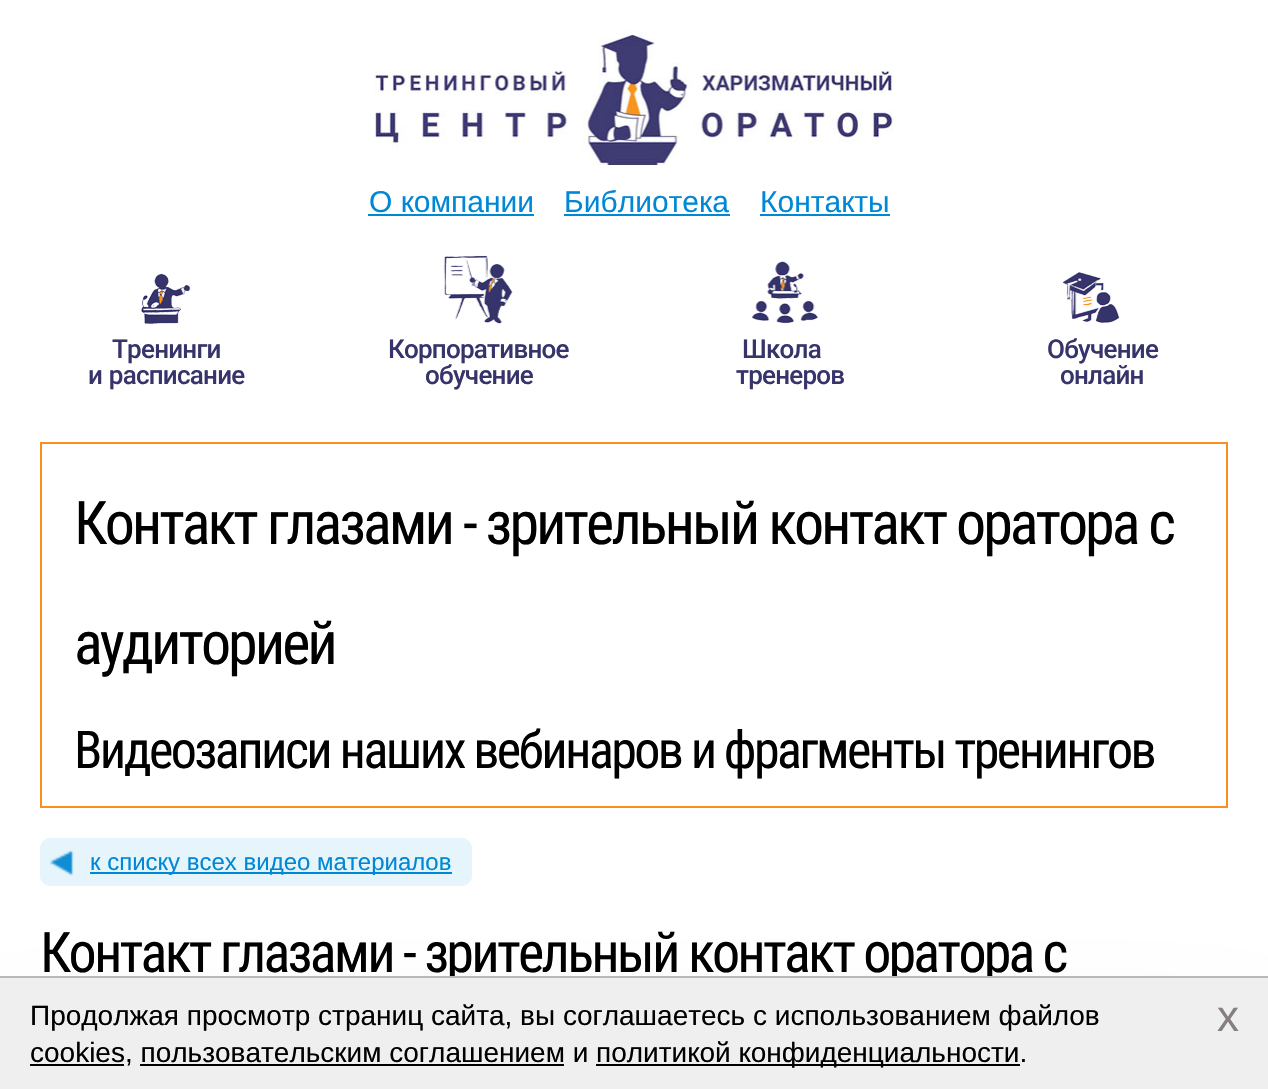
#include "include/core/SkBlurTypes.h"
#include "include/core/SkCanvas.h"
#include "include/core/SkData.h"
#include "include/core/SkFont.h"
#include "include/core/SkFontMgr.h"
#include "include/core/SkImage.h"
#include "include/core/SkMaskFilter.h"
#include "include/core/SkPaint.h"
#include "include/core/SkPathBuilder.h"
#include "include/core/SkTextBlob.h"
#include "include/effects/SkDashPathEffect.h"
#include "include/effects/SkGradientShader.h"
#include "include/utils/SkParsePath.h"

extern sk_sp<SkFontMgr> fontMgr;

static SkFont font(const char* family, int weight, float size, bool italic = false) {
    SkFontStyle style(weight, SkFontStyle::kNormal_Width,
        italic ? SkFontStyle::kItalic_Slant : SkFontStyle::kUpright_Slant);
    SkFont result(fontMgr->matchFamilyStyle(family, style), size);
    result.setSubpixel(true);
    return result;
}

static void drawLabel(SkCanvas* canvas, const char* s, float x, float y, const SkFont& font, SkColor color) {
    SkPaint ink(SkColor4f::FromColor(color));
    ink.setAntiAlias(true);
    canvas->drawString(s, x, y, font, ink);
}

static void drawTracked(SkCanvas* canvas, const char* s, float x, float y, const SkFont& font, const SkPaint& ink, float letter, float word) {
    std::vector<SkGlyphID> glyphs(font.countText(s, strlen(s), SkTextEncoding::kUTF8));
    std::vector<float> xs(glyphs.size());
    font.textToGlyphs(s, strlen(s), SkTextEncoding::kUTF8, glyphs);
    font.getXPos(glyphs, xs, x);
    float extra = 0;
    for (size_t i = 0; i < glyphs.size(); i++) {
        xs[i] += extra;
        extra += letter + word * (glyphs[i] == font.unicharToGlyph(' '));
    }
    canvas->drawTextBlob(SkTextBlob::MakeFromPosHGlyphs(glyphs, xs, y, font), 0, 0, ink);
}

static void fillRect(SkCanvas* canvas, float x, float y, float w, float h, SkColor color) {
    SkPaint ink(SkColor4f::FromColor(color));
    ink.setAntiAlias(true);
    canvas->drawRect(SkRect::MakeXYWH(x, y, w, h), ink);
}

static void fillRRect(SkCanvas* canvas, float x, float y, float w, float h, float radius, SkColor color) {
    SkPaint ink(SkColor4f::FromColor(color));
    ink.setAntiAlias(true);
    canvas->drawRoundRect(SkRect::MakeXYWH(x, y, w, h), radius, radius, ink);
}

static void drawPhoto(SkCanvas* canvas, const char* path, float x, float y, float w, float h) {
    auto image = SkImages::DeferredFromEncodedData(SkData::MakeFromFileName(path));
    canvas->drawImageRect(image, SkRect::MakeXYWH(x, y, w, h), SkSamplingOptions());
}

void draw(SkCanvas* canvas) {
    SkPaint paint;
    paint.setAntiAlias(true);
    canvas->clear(0xFFFFFFFF);
    drawPhoto(canvas, "assets/img1.png", 374, 30, 520, 136);
    SkFont font1 = font("Liberation Sans", 400, 30);
    drawLabel(canvas, "О компании", 369, 212, font1, 0xFF0088D6);
    fillRect(canvas, 368, 214, 166, 2, 0xFF0088D6);
    drawLabel(canvas, "Библиотека", 564, 212, font1, 0xFF0088D6);
    fillRect(canvas, 564, 214, 166, 2, 0xFF0088D6);
    drawLabel(canvas, "Контакты", 760, 212, font1, 0xFF0088D6);
    fillRect(canvas, 760, 214, 130, 2, 0xFF0088D6);
    drawPhoto(canvas, "assets/img2.png", 141, 273, 50, 51);
    SkFont font2 = font("Roboto", 500, 26);
    paint.setColor(0xFF37346B);
    drawTracked(canvas, "Тренинги", 112, 358, font2, paint, -0.75f, 0);
    drawTracked(canvas, "и расписание", 88, 384, font2, paint, -0.75f, 1);
    drawPhoto(canvas, "assets/img3.png", 443, 255, 70, 69);
    drawTracked(canvas, "Корпоративное", 388, 358, font2, paint, -0.75f, 0);
    drawTracked(canvas, "обучение", 425, 384, font2, paint, -0.75f, 0);
    drawPhoto(canvas, "assets/img4.png", 748, 261, 71, 63);
    drawTracked(canvas, "Школа", 742, 358, font2, paint, -0.75f, 0);
    drawTracked(canvas, "тренеров", 736, 384, font2, paint, -0.75f, 0);
    drawPhoto(canvas, "assets/img5.png", 1062, 272, 58, 51);
    drawTracked(canvas, "Обучение", 1047, 358, font2, paint, -0.75f, 0);
    drawTracked(canvas, "онлайн", 1060, 384, font2, paint, -0.75f, 0);
    paint.setStroke(true);
    paint.setStrokeWidth(2);
    paint.setColor(0xFFF7901E);
    canvas->drawRect(SkRect::MakeXYWH(41, 443, 1186, 364), paint);
    SkFont font3 = font("Roboto Condensed", 400, 60);
    paint.setStroke(false);
    paint.setColor(0xFF000000);
    drawTracked(canvas, "Контакт глазами - зрительный контакт оратора с", 74, 544, font3, paint, -3, 0);
    drawTracked(canvas, "аудиторией", 74, 664, font3, paint, -3, 0);
    SkFont font4 = font("Roboto Condensed", 400, 52);
    drawTracked(canvas, "Видеозаписи наших вебинаров и фрагменты тренингов", 74, 768, font4, paint, -2.6f, 0);
    fillRRect(canvas, 40, 838, 432, 48, 10, 0xFFE6F5FB);
    drawPhoto(canvas, "assets/img6.png", 50, 850, 24, 26);
    fillRect(canvas, 90, 872, 362, 2, 0xFF0088D6);
    SkFont font5 = font("Liberation Sans", 400, 24);
    drawLabel(canvas, "к списку всех видео материалов", 90, 870, font5, 0xFF0088D6);
    paint.setColor(0xFFBBBBBB);
    paint.setMaskFilter(SkMaskFilter::MakeBlur(kNormal_SkBlurStyle, 75));
    canvas->drawRect(SkRect::MakeXYWH(40, 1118, 1188, 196), paint);
    paint.setMaskFilter(nullptr);
    SkFont font6 = font("Roboto Condensed", 400, 56);
    paint.setColor(0xFF000000);
    drawTracked(canvas, "Контакт глазами - зрительный контакт оратора с", 40, 972, font6, paint, -2.8f, 0);
    fillRect(canvas, 0, 978, 1268, 111, 0xFFEFEFEF);
    fillRect(canvas, 0, 976, 1268, 2, 0xFFB9B9B9);
    SkFont font7 = font("Liberation Sans", 400, 28);
    drawLabel(canvas, "Продолжая просмотр страниц сайта, вы соглашаетесь с использованием файлов", 30, 1025, font7, 0xFF000000);
    fillRect(canvas, 30, 1064, 94, 2, 0xFF000000);
    drawLabel(canvas, "cookies, пользовательским соглашением и", 30, 1062, font7, 0xFF000000);
    fillRect(canvas, 596, 1064, 424, 2, 0xFF000000);
    drawLabel(canvas, "политикой конфиденциальности.", 596, 1062, font7, 0xFF000000);
    fillRect(canvas, 140, 1064, 424, 2, 0xFF000000);
    SkFont font8 = font("Liberation Sans", 400, 44);
    drawLabel(canvas, "x", 1217, 1031, font8, 0xFF867F7F);
}
